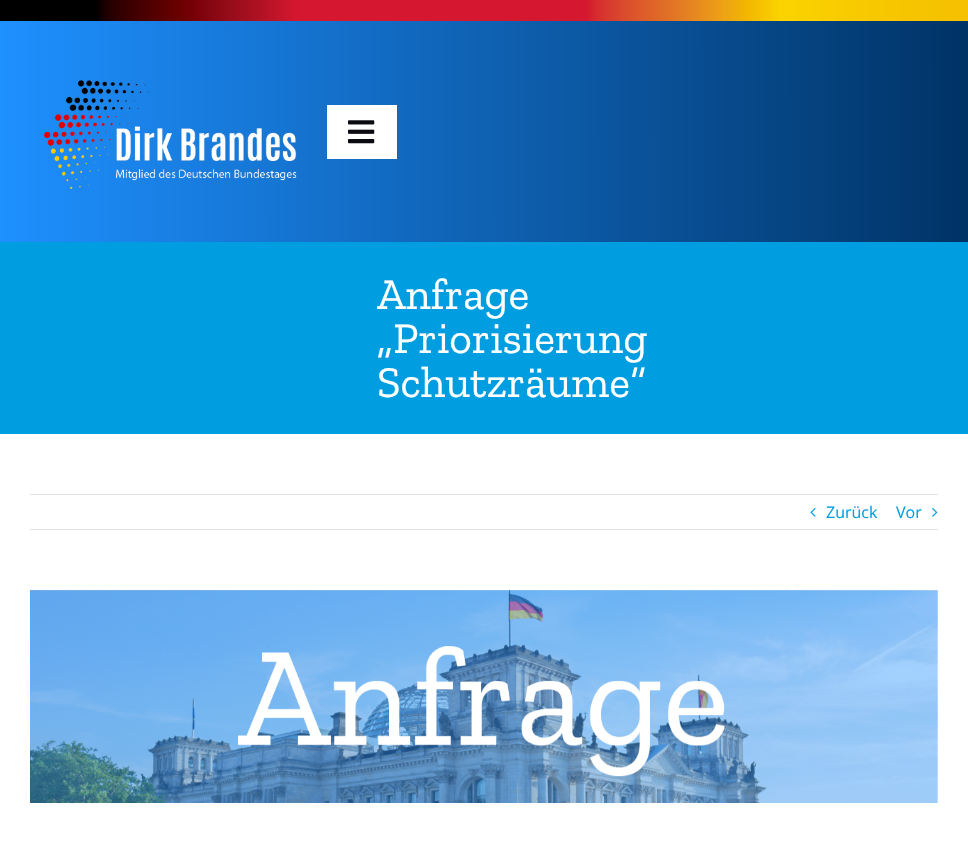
#include "include/core/SkBlurTypes.h"
#include "include/core/SkCanvas.h"
#include "include/core/SkData.h"
#include "include/core/SkFont.h"
#include "include/core/SkFontMgr.h"
#include "include/core/SkImage.h"
#include "include/core/SkMaskFilter.h"
#include "include/core/SkPaint.h"
#include "include/core/SkPathBuilder.h"
#include "include/core/SkTextBlob.h"
#include "include/effects/SkDashPathEffect.h"
#include "include/effects/SkGradientShader.h"
#include "include/utils/SkParsePath.h"

extern sk_sp<SkFontMgr> fontMgr;

static SkFont font(const char* family, int weight, float size, bool italic = false) {
    SkFontStyle style(weight, SkFontStyle::kNormal_Width,
        italic ? SkFontStyle::kItalic_Slant : SkFontStyle::kUpright_Slant);
    SkFont result(fontMgr->matchFamilyStyle(family, style), size);
    result.setSubpixel(true);
    return result;
}

static void drawLabel(SkCanvas* canvas, const char* s, float x, float y, const SkFont& font, SkColor color) {
    SkPaint ink(SkColor4f::FromColor(color));
    ink.setAntiAlias(true);
    canvas->drawString(s, x, y, font, ink);
}

static void fillRect(SkCanvas* canvas, float x, float y, float w, float h, SkColor color) {
    SkPaint ink(SkColor4f::FromColor(color));
    ink.setAntiAlias(true);
    canvas->drawRect(SkRect::MakeXYWH(x, y, w, h), ink);
}

static void drawPhoto(SkCanvas* canvas, const char* path, float x, float y, float w, float h) {
    auto image = SkImages::DeferredFromEncodedData(SkData::MakeFromFileName(path));
    canvas->drawImageRect(image, SkRect::MakeXYWH(x, y, w, h), SkSamplingOptions());
}

void draw(SkCanvas* canvas) {
    SkPaint paint;
    paint.setAntiAlias(true);
    canvas->clear(0xFFFFFFFF);
    drawPhoto(canvas, "assets/img1.png", 0, 0, 968, 21);
    {
        const SkColor colors[] = {0xFF1E90FF, 0xFF003366};
        const float stops[] = {0, 1};
        const SkPoint ends[] = {{0, 132}, {968, 131}};
        paint.setShader(SkGradientShader::MakeLinear(ends, colors, stops, 2, SkTileMode::kClamp));
        paint.setAlpha(255);
    }
    canvas->drawRect(SkRect::MakeXYWH(0, 21, 968, 221), paint);
    drawPhoto(canvas, "assets/img2.png", 44, 80, 253, 110);
    fillRect(canvas, 327, 105, 70, 54, 0xFFFFFFFF);
    drawPhoto(canvas, "assets/img3.png", 348, 120, 27, 24);
    fillRect(canvas, 0, 242, 968, 192, 0xFF009EE0);
    SkFont font1 = font("Zilla Slab", 400, 44);
    drawLabel(canvas, "Anfrage", 377, 309, font1, 0xFFFFFFFF);
    drawLabel(canvas, "„Priorisierung", 377, 353, font1, 0xFFFFFFFF);
    drawLabel(canvas, "Schutzräume“", 377, 397, font1, 0xFFFFFFFF);
    fillRect(canvas, 30, 494, 908, 1, 0xFFE2E2E2);
    fillRect(canvas, 30, 529, 908, 1, 0xFFE2E2E2);
    drawPhoto(canvas, "assets/img4.png", 810, 508, 6, 9);
    SkFont font2 = font("Open Sans", 400, 16);
    drawLabel(canvas, "Zurück", 826, 518, font2, 0xFF009EE0);
    drawLabel(canvas, "Vor", 896, 518, font2, 0xFF009EE0);
    drawPhoto(canvas, "assets/img5.png", 932, 508, 6, 9);
    drawPhoto(canvas, "assets/img6.png", 30, 590, 908, 213);
}
